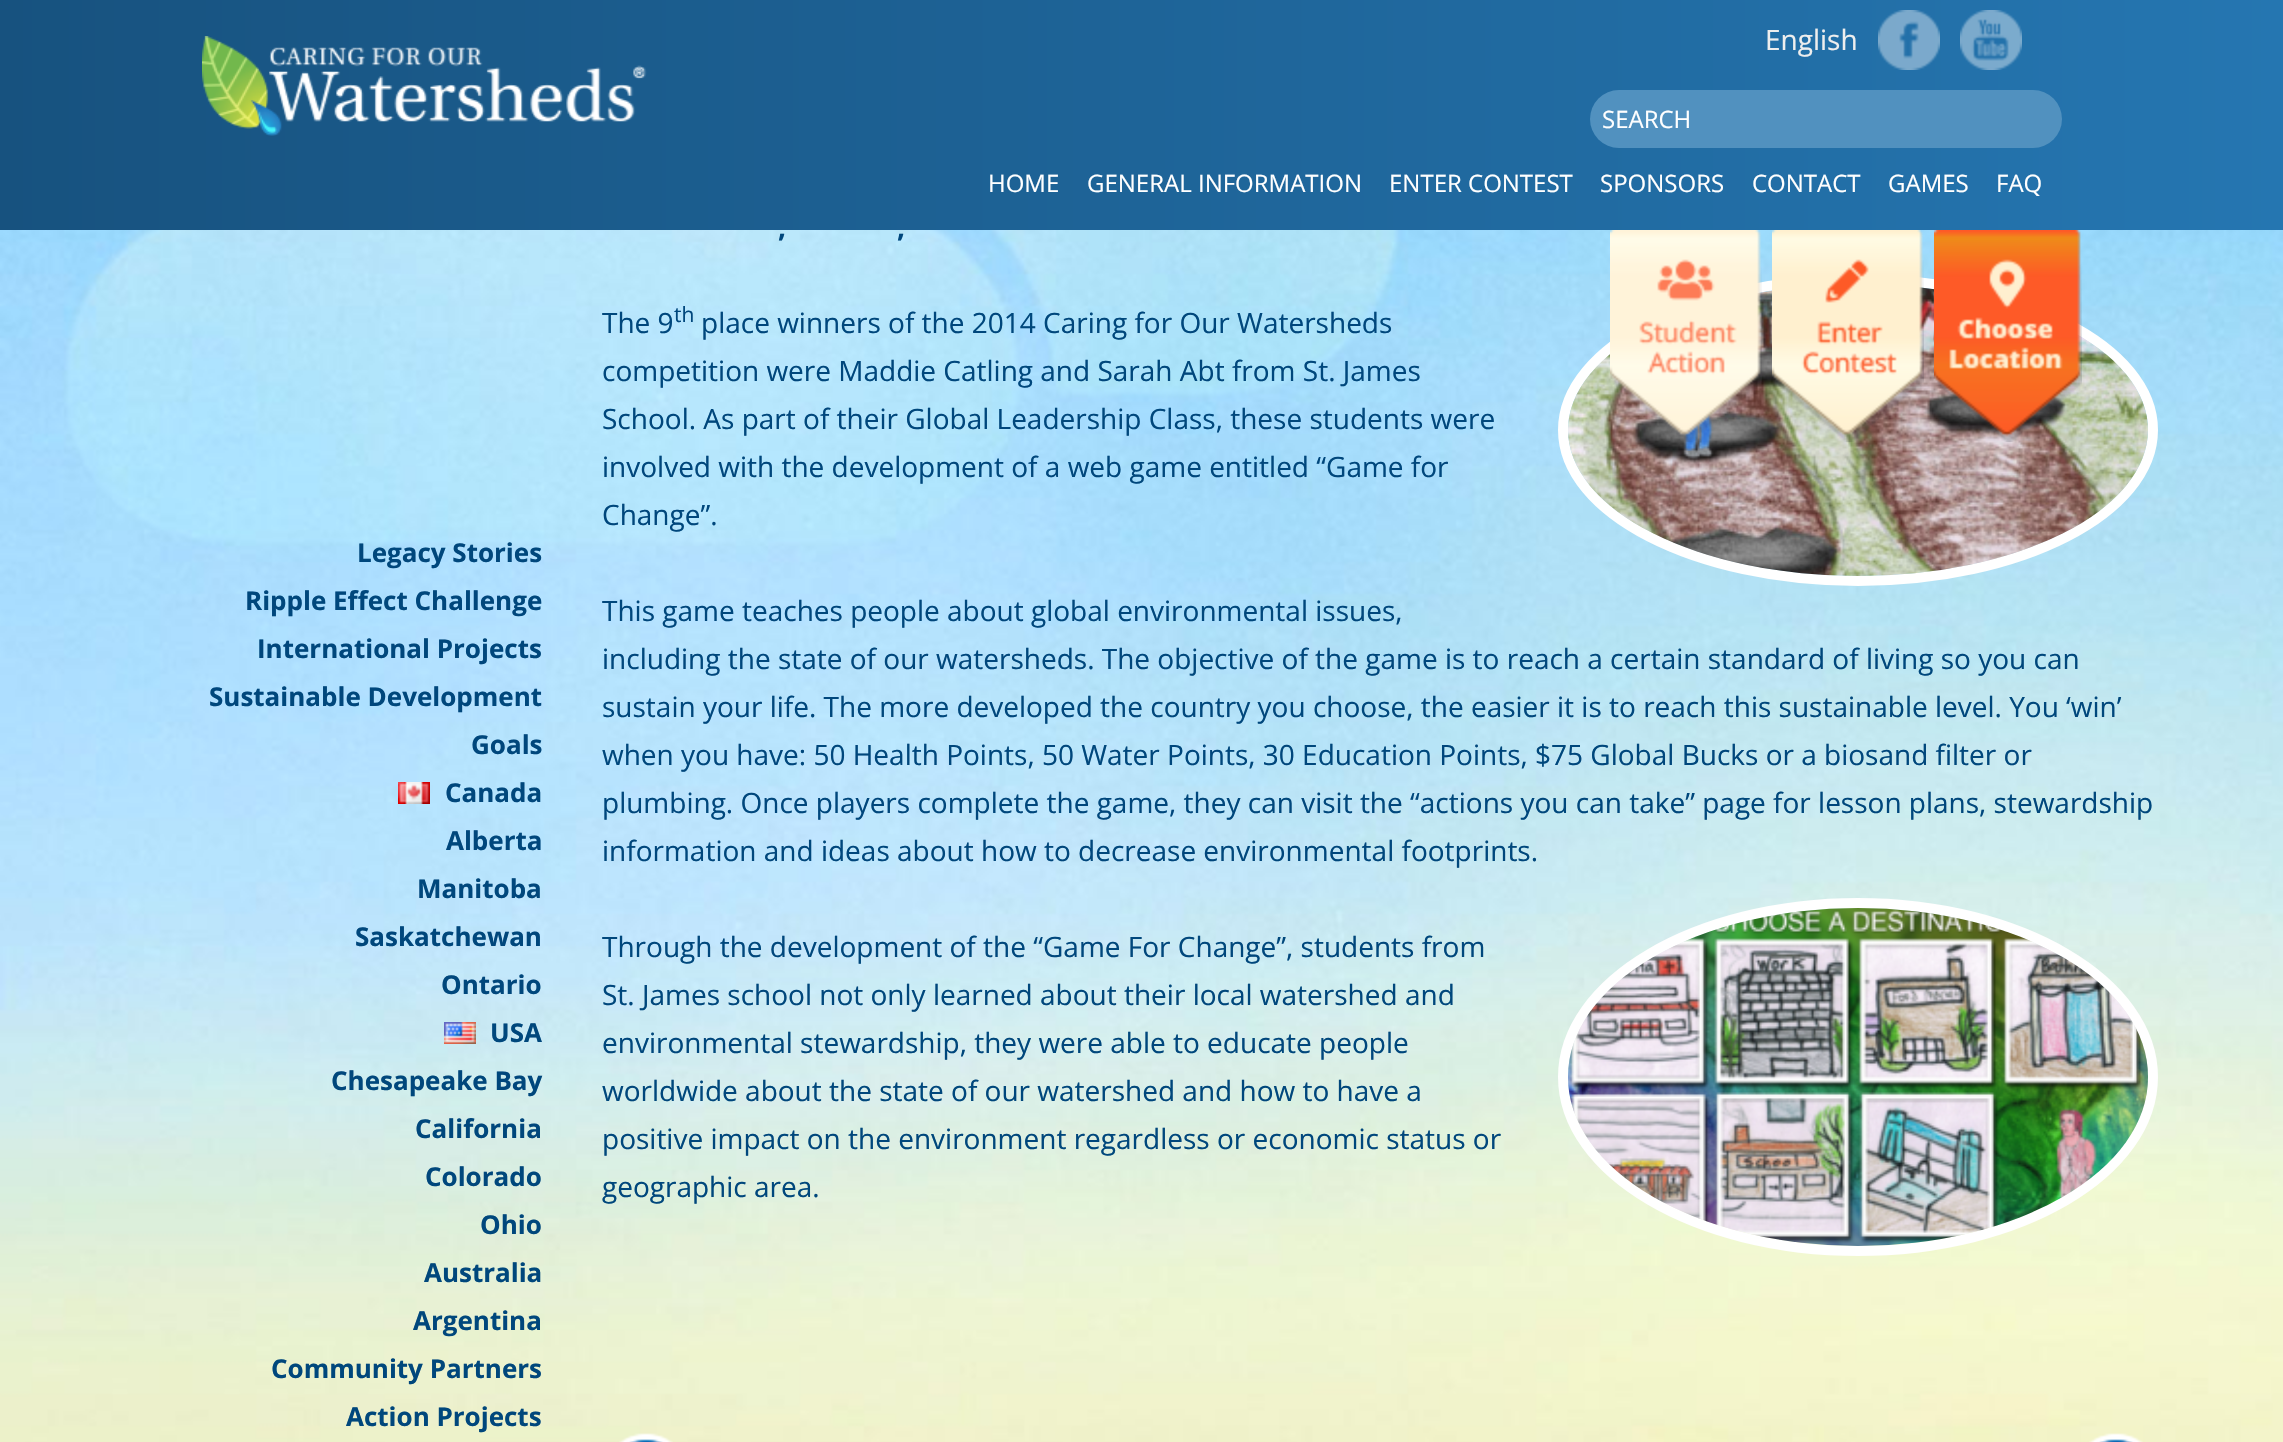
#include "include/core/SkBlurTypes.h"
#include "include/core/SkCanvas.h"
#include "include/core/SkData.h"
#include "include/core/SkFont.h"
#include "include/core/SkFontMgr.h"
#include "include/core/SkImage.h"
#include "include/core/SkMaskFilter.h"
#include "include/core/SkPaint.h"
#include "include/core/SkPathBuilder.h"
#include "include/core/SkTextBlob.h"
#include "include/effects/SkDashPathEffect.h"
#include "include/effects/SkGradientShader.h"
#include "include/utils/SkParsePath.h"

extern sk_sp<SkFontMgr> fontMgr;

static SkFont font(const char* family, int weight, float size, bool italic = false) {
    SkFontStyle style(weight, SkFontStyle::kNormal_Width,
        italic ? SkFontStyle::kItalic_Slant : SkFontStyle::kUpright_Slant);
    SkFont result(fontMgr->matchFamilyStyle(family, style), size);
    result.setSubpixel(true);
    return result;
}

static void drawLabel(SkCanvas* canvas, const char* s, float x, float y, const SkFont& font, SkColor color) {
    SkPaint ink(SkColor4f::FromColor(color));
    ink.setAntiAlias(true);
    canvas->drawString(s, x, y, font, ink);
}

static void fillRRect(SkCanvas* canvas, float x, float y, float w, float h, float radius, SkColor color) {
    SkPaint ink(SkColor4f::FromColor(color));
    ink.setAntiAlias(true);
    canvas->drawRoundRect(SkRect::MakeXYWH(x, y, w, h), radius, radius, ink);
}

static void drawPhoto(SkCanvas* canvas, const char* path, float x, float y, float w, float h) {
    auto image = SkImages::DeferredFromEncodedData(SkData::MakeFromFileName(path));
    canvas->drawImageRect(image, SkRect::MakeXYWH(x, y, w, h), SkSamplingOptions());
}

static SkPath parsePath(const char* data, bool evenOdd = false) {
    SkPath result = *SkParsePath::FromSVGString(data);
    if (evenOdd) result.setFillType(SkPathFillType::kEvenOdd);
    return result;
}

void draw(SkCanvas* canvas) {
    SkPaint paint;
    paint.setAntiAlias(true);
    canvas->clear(0xFFFFFFFF);
    drawPhoto(canvas, "assets/img1.png", 0, 230, 2283, 1212);
    {
        const SkColor colors[] = {0xFF17527F, 0xFF2576B1};
        const float stops[] = {0, 1};
        const SkPoint ends[] = {{0, 115}, {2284, 115}};
        paint.setShader(SkGradientShader::MakeLinear(ends, colors, stops, 2, SkTileMode::kClamp));
        paint.setAlpha(255);
    }
    canvas->drawRect(SkRect::MakeXYWH(0, 0, 2283, 230), paint);
    drawPhoto(canvas, "assets/img2.png", 202, 36, 445, 100);
    SkFont font1 = font("Open Sans", 400, 28);
    drawLabel(canvas, "English", 1765, 50, font1, 0xFFEEEEEE);
    drawPhoto(canvas, "assets/img3.png", 1878, 10, 62, 60);
    drawPhoto(canvas, "assets/img4.png", 1960, 10, 62, 60);
    fillRRect(canvas, 1590, 90, 472, 58, 29, 0xFF5191BF);
    SkFont font2 = font("Open Sans", 400, 24);
    drawLabel(canvas, "SEARCH", 1602, 128, font2, 0xFFFFFFFF);
    drawLabel(canvas, "HOME", 988, 192, font2, 0xFFFFFFFF);
    drawLabel(canvas, "GENERAL INFORMATION", 1087, 192, font2, 0xFFFFFFFF);
    drawLabel(canvas, "ENTER CONTEST", 1389, 192, font2, 0xFFFFFFFF);
    drawLabel(canvas, "SPONSORS", 1600, 192, font2, 0xFFFFFFFF);
    drawLabel(canvas, "CONTACT", 1752, 192, font2, 0xFFFFFFFF);
    drawLabel(canvas, "GAMES", 1888, 192, font2, 0xFFFFFFFF);
    drawLabel(canvas, "FAQ", 1996, 192, font2, 0xFFFFFFFF);
    paint.setStroke(true);
    paint.setStrokeWidth(10);
    paint.setShader(nullptr);
    paint.setColor(0xFFFFFFFF);
    canvas->drawPath(parsePath("M1858 279C2021 279 2153 346.5 2153 430C2153 513.5 2021 581 1858 581C1695 581 1563 513.5 1563 430C1563 346.5 1695 279 1858 279Z"), paint);
    drawPhoto(canvas, "assets/img10.png", 1568, 287, 580, 289);
    drawPhoto(canvas, "assets/img5.png", 1610, 230, 152, 212);
    drawPhoto(canvas, "assets/img6.png", 1772, 230, 152, 212);
    drawPhoto(canvas, "assets/img7.png", 1934, 230, 148, 212);
    SkFont font3 = font("Open Sans", 700, 26);
    drawLabel(canvas, "Legacy Stories", 357, 562, font3, 0xFF00477C);
    drawLabel(canvas, "Ripple Effect Challenge", 245, 610, font3, 0xFF00477C);
    drawLabel(canvas, "International Projects", 257, 658, font3, 0xFF00477C);
    drawLabel(canvas, "Sustainable Development", 209, 706, font3, 0xFF00477C);
    drawLabel(canvas, "Goals", 471, 754, font3, 0xFF00477C);
    drawPhoto(canvas, "assets/img8.png", 398, 782, 32, 22);
    drawLabel(canvas, "Canada", 445, 802, font3, 0xFF00477C);
    drawLabel(canvas, "Alberta", 446, 850, font3, 0xFF00477C);
    drawLabel(canvas, "Manitoba", 417, 898, font3, 0xFF00477C);
    drawLabel(canvas, "Saskatchewan", 355, 946, font3, 0xFF00477C);
    drawLabel(canvas, "Ontario", 441, 994, font3, 0xFF00477C);
    drawPhoto(canvas, "assets/img9.png", 444, 1022, 32, 22);
    drawLabel(canvas, "USA", 490, 1042, font3, 0xFF00477C);
    drawLabel(canvas, "Chesapeake Bay", 331, 1090, font3, 0xFF00477C);
    drawLabel(canvas, "California", 415, 1138, font3, 0xFF00477C);
    drawLabel(canvas, "Colorado", 425, 1186, font3, 0xFF00477C);
    drawLabel(canvas, "Ohio", 480, 1234, font3, 0xFF00477C);
    drawLabel(canvas, "Australia", 424, 1282, font3, 0xFF00477C);
    drawLabel(canvas, "Argentina", 413, 1330, font3, 0xFF00477C);
    drawLabel(canvas, "Community Partners", 271, 1378, font3, 0xFF00477C);
    drawLabel(canvas, "Action Projects", 346, 1426, font3, 0xFF00477C);
    SkFont font4 = font("Open Sans", 700, 28);
    drawLabel(canvas, ",", 778, 237, font4, 0xFF00477C);
    drawLabel(canvas, ",", 897, 237, font4, 0xFF00477C);
    drawLabel(canvas, "The 9", 602, 333, font1, 0xFF00477C);
    SkFont font5 = font("Open Sans", 400, 21);
    drawLabel(canvas, "th", 674, 322, font5, 0xFF00477C);
    drawLabel(canvas, "place winners of the 2014 Caring for Our Watersheds", 701, 333, font1, 0xFF00477C);
    drawLabel(canvas, "competition were Maddie Catling and Sarah Abt from St. James", 602, 381, font1, 0xFF00477C);
    drawLabel(canvas, "School. As part of their Global Leadership Class, these students were", 602, 429, font1, 0xFF00477C);
    drawLabel(canvas, "involved with the development of a web game entitled “Game for", 602, 477, font1, 0xFF00477C);
    drawLabel(canvas, "Change”.", 602, 525, font1, 0xFF00477C);
    drawLabel(canvas, "This game teaches people about global environmental issues,", 602, 621, font1, 0xFF00477C);
    drawLabel(canvas, "including the state of our watersheds. The objective of the game is to reach a certain standard of living so you can", 602, 669, font1, 0xFF00477C);
    drawLabel(canvas, "sustain your life. The more developed the country you choose, the easier it is to reach this sustainable level. You ‘win’", 602, 717, font1, 0xFF00477C);
    drawLabel(canvas, "when you have: 50 Health Points, 50 Water Points, 30 Education Points, $75 Global Bucks or a biosand filter or", 602, 765, font1, 0xFF00477C);
    drawLabel(canvas, "plumbing. Once players complete the game, they can visit the “actions you can take” page for lesson plans, stewardship", 602, 813, font1, 0xFF00477C);
    drawLabel(canvas, "information and ideas about how to decrease environmental footprints.", 602, 861, font1, 0xFF00477C);
    canvas->drawPath(parsePath("M1858 903C2021 903 2153 981 2153 1077C2153 1173 2021 1251 1858 1251C1695 1251 1563 1173 1563 1077C1563 981 1695 903 1858 903Z"), paint);
    drawPhoto(canvas, "assets/img11.png", 1568, 908, 580, 338);
    drawLabel(canvas, "Through the development of the “Game For Change”, students from", 602, 957, font1, 0xFF00477C);
    drawLabel(canvas, "St. James school not only learned about their local watershed and", 602, 1005, font1, 0xFF00477C);
    drawLabel(canvas, "environmental stewardship, they were able to educate people", 602, 1053, font1, 0xFF00477C);
    drawLabel(canvas, "worldwide about the state of our watershed and how to have a", 602, 1101, font1, 0xFF00477C);
    drawLabel(canvas, "positive impact on the environment regardless or economic status or", 602, 1149, font1, 0xFF00477C);
    drawLabel(canvas, "geographic area.", 602, 1197, font1, 0xFF00477C);
    drawPhoto(canvas, "assets/img12.png", 619, 1433, 54, 9);
    drawPhoto(canvas, "assets/img13.png", 2089, 1433, 54, 9);
}
